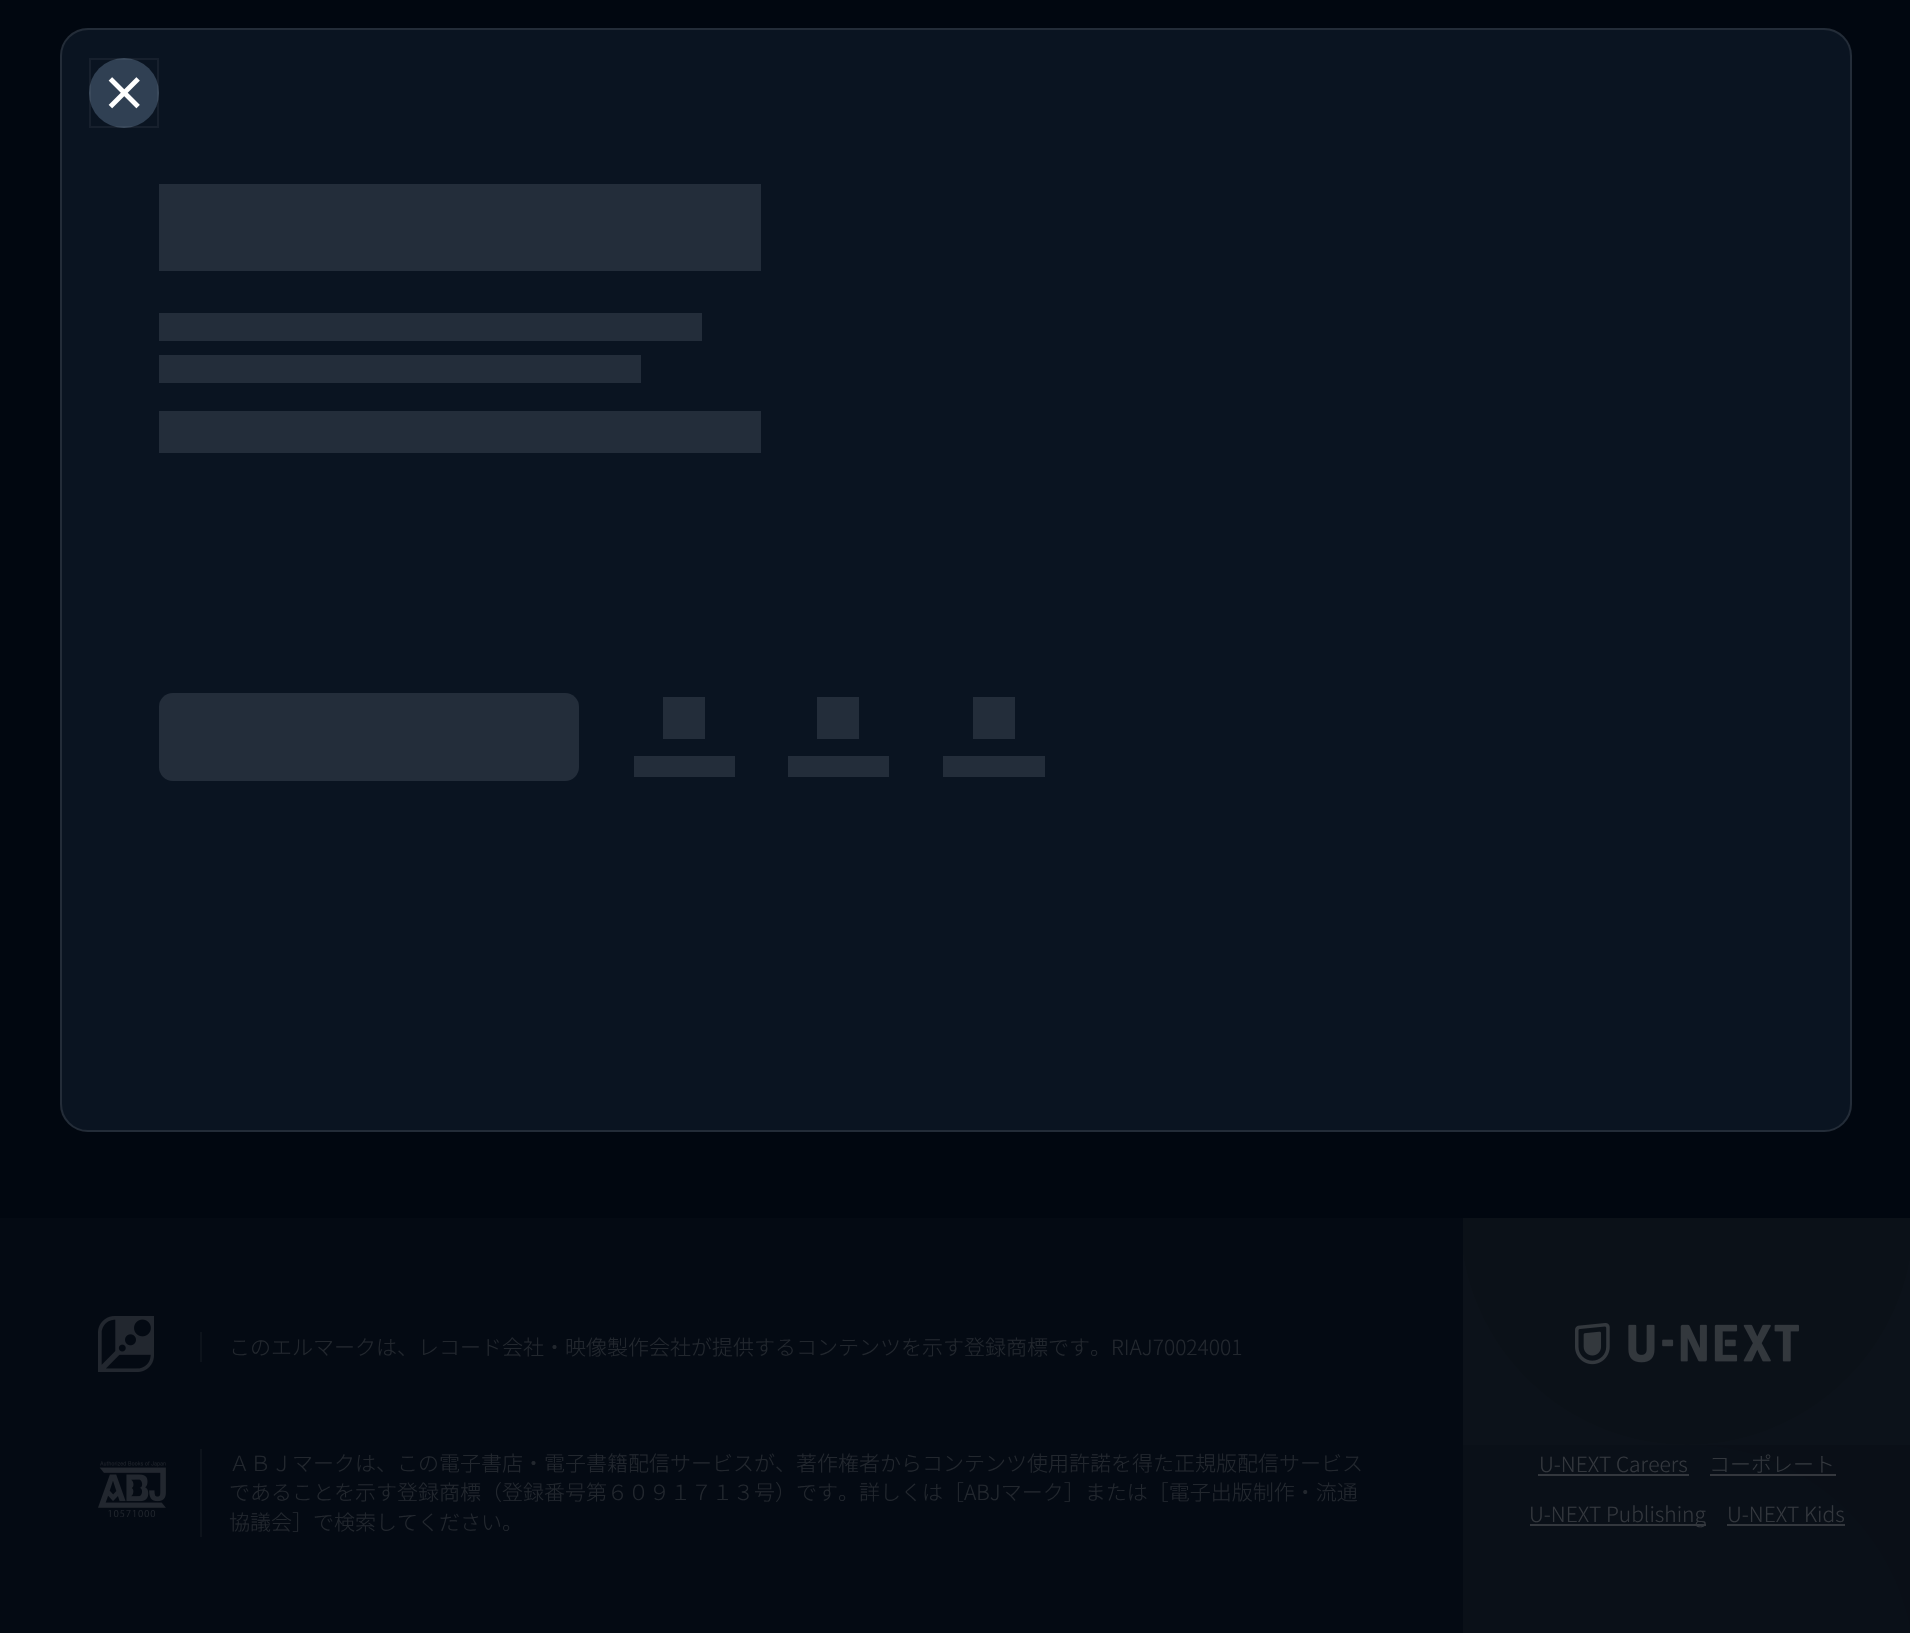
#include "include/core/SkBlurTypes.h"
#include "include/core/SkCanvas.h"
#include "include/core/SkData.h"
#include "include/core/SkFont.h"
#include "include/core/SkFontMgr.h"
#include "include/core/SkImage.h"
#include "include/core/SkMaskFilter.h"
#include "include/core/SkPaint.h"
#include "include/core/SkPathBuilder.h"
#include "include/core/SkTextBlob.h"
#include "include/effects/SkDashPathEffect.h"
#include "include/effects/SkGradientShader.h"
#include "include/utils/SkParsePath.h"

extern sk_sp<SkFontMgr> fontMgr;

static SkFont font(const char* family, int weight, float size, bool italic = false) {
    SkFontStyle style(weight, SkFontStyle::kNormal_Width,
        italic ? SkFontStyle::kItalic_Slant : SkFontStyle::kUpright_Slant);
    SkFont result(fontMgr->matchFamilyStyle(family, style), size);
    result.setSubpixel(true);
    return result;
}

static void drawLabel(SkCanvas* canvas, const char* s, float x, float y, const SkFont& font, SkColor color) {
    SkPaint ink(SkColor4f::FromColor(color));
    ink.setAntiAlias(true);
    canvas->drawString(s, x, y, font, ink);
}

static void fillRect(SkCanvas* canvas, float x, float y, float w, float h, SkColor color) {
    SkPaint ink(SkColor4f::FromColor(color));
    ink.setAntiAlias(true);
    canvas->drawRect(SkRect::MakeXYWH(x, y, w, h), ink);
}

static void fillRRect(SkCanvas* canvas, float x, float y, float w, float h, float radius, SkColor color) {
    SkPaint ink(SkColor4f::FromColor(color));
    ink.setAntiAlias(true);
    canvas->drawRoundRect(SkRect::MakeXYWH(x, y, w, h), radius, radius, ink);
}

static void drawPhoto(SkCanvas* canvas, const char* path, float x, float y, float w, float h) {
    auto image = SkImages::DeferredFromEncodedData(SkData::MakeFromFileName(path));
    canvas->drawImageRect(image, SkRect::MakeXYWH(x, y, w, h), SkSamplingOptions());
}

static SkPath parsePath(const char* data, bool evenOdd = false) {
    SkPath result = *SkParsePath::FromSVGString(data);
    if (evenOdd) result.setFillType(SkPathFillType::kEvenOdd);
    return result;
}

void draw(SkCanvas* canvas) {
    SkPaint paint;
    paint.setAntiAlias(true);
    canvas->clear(0xFF010710);
    fillRRect(canvas, 60, 28, 1792, 1104, 28, 0xFF0A1421);
    paint.setStroke(true);
    paint.setStrokeWidth(2);
    paint.setColor(0x1AFFFFFF);
    canvas->drawRoundRect(SkRect::MakeXYWH(61, 29, 1790, 1102), 27, 27, paint);
    paint.setStroke(false);
    paint.setColor(0xFF304053);
    canvas->drawCircle(124, 93, 35, paint);
    paint.setStroke(true);
    paint.setColor(0x0DFFFFFF);
    canvas->drawRect(SkRect::MakeXYWH(90, 59, 68, 68), paint);
    drawPhoto(canvas, "assets/img1.png", 108, 77, 32, 32);
    fillRect(canvas, 159, 184, 602, 87, 0xFF232D3A);
    fillRect(canvas, 159, 313, 543, 28, 0xFF232D3A);
    fillRect(canvas, 159, 355, 482, 28, 0xFF232D3A);
    fillRect(canvas, 159, 411, 602, 42, 0xFF232D3A);
    fillRRect(canvas, 159, 693, 420, 88, 14, 0xFF232D3A);
    fillRect(canvas, 663, 697, 42, 42, 0xFF232D3A);
    fillRect(canvas, 634, 756, 101, 21, 0xFF232D3A);
    fillRect(canvas, 817, 697, 42, 42, 0xFF232D3A);
    fillRect(canvas, 788, 756, 101, 21, 0xFF232D3A);
    fillRect(canvas, 973, 697, 42, 42, 0xFF232D3A);
    fillRect(canvas, 943, 756, 102, 21, 0xFF232D3A);
    fillRect(canvas, 0, 1218, 1463, 415, 0xFF040A13);
    drawPhoto(canvas, "assets/img2.png", 98, 1316, 56, 56);
    fillRect(canvas, 200, 1332, 2, 30, 0xFF0D131B);
    SkFont font1 = font("Noto Sans JP", 300, 21);
    drawLabel(canvas, "このエルマークは、レコード会社・映像製作会社が提供するコンテンツを示す登録商標です。RIAJ70024001", 229, 1355, font1, 0xFF22272E);
    drawPhoto(canvas, "assets/img3.png", 98, 1461, 68, 56);
    fillRect(canvas, 200, 1449, 2, 88, 0xFF0D131B);
    drawLabel(canvas, "ＡＢＪマークは、この電子書店・電子書籍配信サービスが、著作権者からコンテンツ使用許諾を得た正規版配信サービス", 229, 1471, font1, 0xFF22272E);
    drawLabel(canvas, "であることを示す登録商標（登録番号第６０９１７１３号）です。詳しくは［ABJマーク］または［電子出版制作・流通", 229, 1500, font1, 0xFF22272E);
    drawLabel(canvas, "協議会］で検索してください。", 229, 1530, font1, 0xFF22272E);
    fillRect(canvas, 1688, 1445, 222, 185, 0xFF0A0F17);
    canvas->save();
    canvas->clipRect(SkRect::MakeXYWH(1463, 1218, 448, 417));
    paint.setStroke(false);
    paint.setColor(0xFF0A1018);
    canvas->drawPath(parsePath("M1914 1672C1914 1547 1812 1445 1687 1445H1460V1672Z", true), paint);
    canvas->restore();
    fillRect(canvas, 1463, 1254, 447, 191, 0xFF0C121A);
    canvas->save();
    canvas->clipRect(SkRect::MakeXYWH(1463, 1218, 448, 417));
    paint.setColor(0xFF0B1118);
    canvas->drawPath(parsePath("M1687 1445C1561 1445 1460 1343 1460 1218H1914C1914 1343 1812 1445 1687 1445Z", true), paint);
    canvas->restore();
    drawPhoto(canvas, "assets/img4.png", 1575, 1323, 224, 42);
    drawLabel(canvas, "U-NEXT Careers", 1539, 1472, font1, 0xFF33373D);
    fillRect(canvas, 1538, 1474, 151, 2, 0xFF33373D);
    drawLabel(canvas, "コーポレート", 1709, 1472, font1, 0xFF33373D);
    fillRect(canvas, 1710, 1474, 126, 2, 0xBF41444A);
    fillRect(canvas, 1530, 1524, 176, 2, 0xFF33373D);
    drawLabel(canvas, "U-NEXT Publishing", 1529, 1522, font1, 0xFF33373D);
    drawLabel(canvas, "U-NEXT Kids", 1727, 1522, font1, 0xFF33373D);
    fillRect(canvas, 1727, 1524, 118, 2, 0xFF33373D);
}
